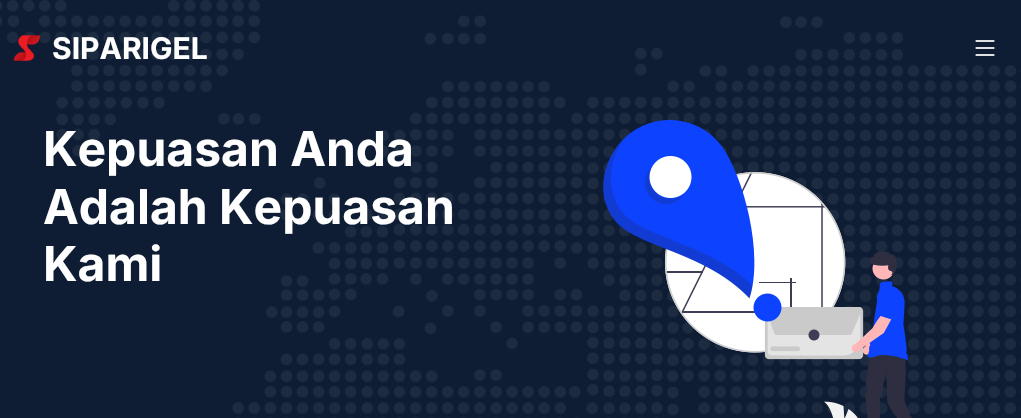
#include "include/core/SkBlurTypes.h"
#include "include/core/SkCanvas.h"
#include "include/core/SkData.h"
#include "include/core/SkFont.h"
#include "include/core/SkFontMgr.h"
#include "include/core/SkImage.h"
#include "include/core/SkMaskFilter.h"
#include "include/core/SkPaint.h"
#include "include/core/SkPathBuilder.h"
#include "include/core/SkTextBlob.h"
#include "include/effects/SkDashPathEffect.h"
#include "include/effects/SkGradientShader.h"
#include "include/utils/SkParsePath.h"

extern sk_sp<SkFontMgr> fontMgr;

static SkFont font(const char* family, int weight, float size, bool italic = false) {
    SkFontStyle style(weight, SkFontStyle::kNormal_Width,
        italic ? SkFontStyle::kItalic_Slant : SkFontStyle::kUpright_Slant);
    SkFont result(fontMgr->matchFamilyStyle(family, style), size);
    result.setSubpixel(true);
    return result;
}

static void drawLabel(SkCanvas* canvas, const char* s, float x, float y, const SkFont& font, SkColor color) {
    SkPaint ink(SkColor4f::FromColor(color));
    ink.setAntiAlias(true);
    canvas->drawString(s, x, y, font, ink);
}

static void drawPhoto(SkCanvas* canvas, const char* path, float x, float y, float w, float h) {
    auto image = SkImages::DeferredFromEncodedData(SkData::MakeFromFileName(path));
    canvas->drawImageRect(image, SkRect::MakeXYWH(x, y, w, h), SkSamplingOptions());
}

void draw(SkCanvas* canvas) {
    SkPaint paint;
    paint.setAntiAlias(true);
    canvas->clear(0xFF0E1D34);
    drawPhoto(canvas, "assets/img3.png", 0, 0, 1021, 418);
    drawPhoto(canvas, "assets/img1.png", 13, 35, 27, 26);
    SkFont font1 = font("Inter", 700, 30);
    drawLabel(canvas, "SIPARIGEL", 52, 59, font1, 0xFFFFFFFF);
    drawPhoto(canvas, "assets/img2.png", 975, 40, 20, 16);
    SkFont font2 = font("Inter", 700, 48);
    drawLabel(canvas, "Kepuasan Anda", 43, 166, font2, 0xFFFFFFFF);
    drawLabel(canvas, "Adalah Kepuasan", 43, 224, font2, 0xFFFFFFFF);
    drawLabel(canvas, "Kami", 43, 281, font2, 0xFFFFFFFF);
    drawPhoto(canvas, "assets/img4.png", 603, 120, 309, 298);
}
